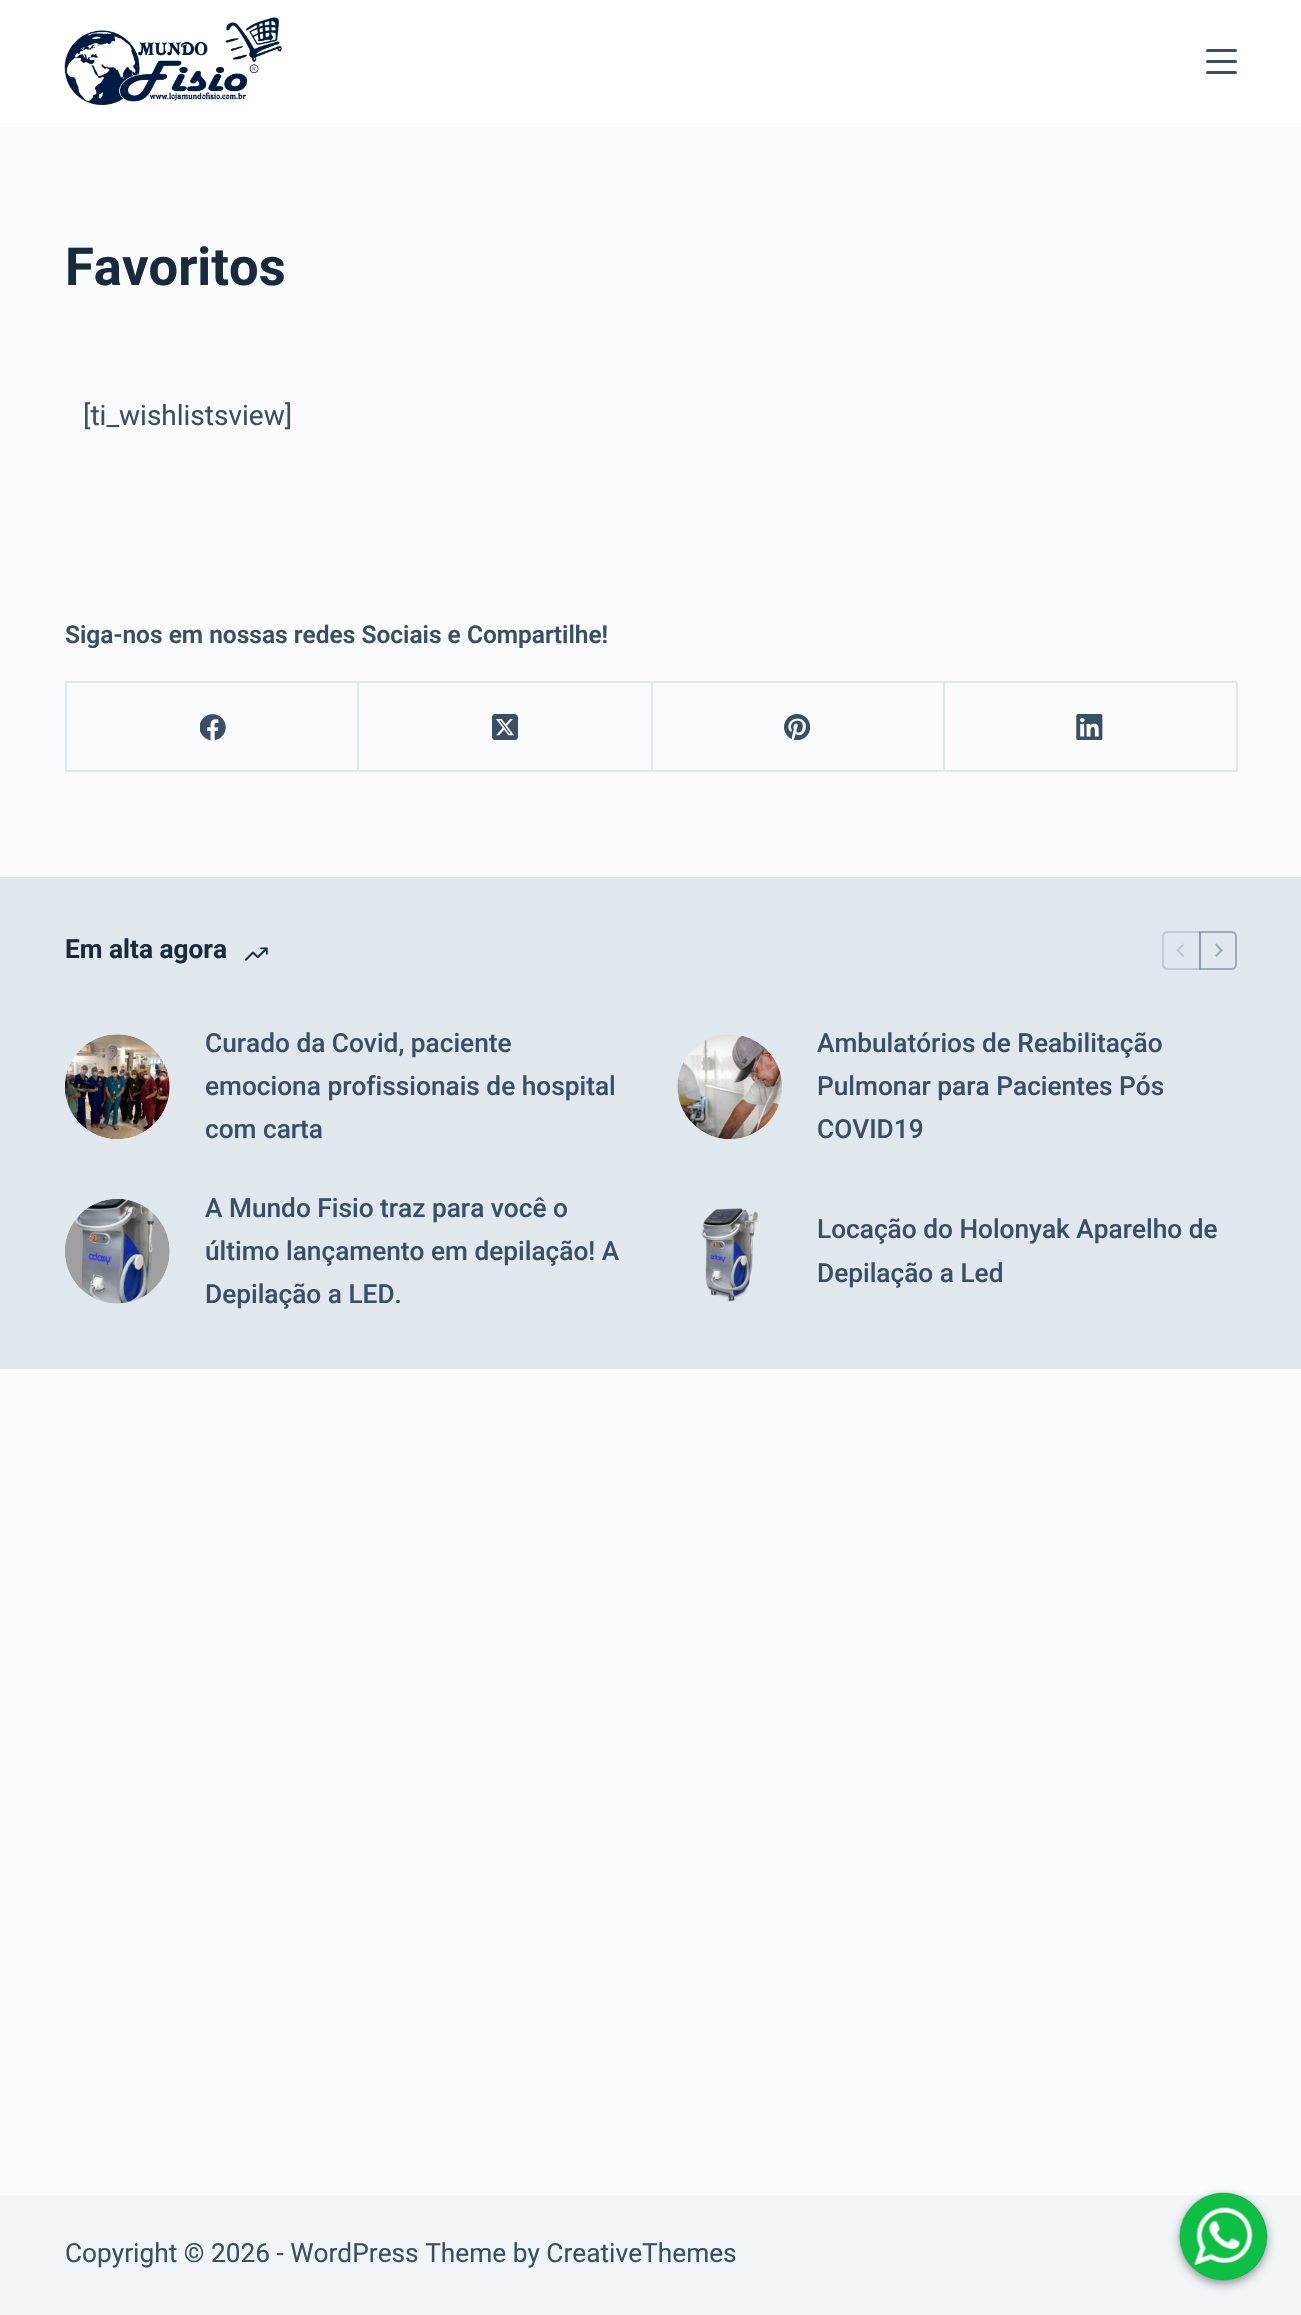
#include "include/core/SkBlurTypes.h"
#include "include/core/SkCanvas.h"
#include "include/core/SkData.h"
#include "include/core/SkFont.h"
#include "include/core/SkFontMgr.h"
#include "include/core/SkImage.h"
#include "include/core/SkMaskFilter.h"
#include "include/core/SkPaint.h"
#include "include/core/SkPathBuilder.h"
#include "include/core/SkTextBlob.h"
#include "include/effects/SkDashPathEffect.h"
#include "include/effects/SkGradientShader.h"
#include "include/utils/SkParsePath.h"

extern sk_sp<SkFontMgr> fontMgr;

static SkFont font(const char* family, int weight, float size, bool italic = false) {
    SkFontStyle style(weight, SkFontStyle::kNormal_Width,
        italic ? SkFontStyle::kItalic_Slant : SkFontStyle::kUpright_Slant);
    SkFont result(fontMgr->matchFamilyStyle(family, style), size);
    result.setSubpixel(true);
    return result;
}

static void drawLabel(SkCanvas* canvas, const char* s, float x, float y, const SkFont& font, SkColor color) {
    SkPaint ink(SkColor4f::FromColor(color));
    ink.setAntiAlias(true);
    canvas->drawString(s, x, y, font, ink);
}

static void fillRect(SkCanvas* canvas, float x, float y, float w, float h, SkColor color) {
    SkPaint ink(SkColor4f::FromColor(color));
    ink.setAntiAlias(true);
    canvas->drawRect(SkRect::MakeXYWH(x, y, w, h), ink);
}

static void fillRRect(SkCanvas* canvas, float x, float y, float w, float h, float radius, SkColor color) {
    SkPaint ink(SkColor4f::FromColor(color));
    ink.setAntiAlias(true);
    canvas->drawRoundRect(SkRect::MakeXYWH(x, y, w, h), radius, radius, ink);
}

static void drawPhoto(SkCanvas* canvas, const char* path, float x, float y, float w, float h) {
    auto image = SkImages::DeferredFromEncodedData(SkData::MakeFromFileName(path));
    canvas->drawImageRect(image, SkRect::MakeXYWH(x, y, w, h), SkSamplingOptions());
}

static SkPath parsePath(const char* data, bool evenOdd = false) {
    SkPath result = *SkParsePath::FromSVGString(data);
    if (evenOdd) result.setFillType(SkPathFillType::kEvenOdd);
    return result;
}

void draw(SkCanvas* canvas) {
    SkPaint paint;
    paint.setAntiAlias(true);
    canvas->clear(0xFFFAFBFC);
    fillRect(canvas, 0, 0, 1301, 123, 0xFFFFFFFF);
    drawPhoto(canvas, "assets/img1.png", 64, 17, 218, 88);
    fillRRect(canvas, 1206, 49, 31, 3, 1.5f, 0xFF3A4F66);
    fillRRect(canvas, 1206, 60, 31, 3, 1.5f, 0xFF3A4F66);
    fillRRect(canvas, 1206, 71, 31, 3, 1.5f, 0xFF3A4F66);
    SkFont font1 = font("Roboto", 700, 52.5f);
    drawLabel(canvas, "Favoritos", 65, 285, font1, 0xFF192A3D);
    SkFont font2 = font("Roboto", 400, 28);
    drawLabel(canvas, "[ti_wishlistsview]", 83, 425, font2, 0xFF3A4F66);
    SkFont font3 = font("Roboto", 600, 24.5f);
    drawLabel(canvas, "Siga-nos em nossas redes Sociais e Compartilhe!", 65, 643, font3, 0xFF3A4F66);
    fillRect(canvas, 65, 681, 1172, 2, 0xFFE1E8ED);
    fillRect(canvas, 65, 681, 2, 91, 0xFFE1E8ED);
    fillRect(canvas, 357, 683, 2, 89, 0xFFE1E8ED);
    fillRect(canvas, 67, 770, 292, 2, 0xFFE1E8ED);
    drawPhoto(canvas, "assets/img2.png", 200, 714, 26, 26);
    fillRect(canvas, 651, 683, 2, 89, 0xFFE1E8ED);
    fillRect(canvas, 359, 770, 294, 2, 0xFFE1E8ED);
    drawPhoto(canvas, "assets/img3.png", 492, 714, 26, 26);
    fillRect(canvas, 943, 683, 2, 89, 0xFFE1E8ED);
    fillRect(canvas, 653, 770, 292, 2, 0xFFE1E8ED);
    drawPhoto(canvas, "assets/img4.png", 784, 714, 26, 26);
    fillRect(canvas, 1236, 683, 2, 89, 0xFFE1E8ED);
    fillRect(canvas, 945, 770, 292, 2, 0xFFE1E8ED);
    drawPhoto(canvas, "assets/img5.png", 1076, 714, 27, 26);
    fillRect(canvas, 0, 877, 1301, 492, 0xFFE1E8ED);
    SkFont font4 = font("Roboto", 700, 26.25f);
    drawLabel(canvas, "Em alta agora", 65, 958, font4, 0xFF192A3D);
    drawPhoto(canvas, "assets/img6.png", 245, 947, 23, 14);
    paint.setStroke(true);
    paint.setStrokeWidth(2);
    paint.setColor(0xFFC0C9D2);
    canvas->drawPath(parsePath("M1167 932H1200V969H1167C1165 969 1163 967 1163 965V936C1163 934 1165 932 1167 932Z"), paint);
    drawPhoto(canvas, "assets/img7.png", 1176, 943, 8, 14);
    paint.setColor(0x663A4F66);
    canvas->drawPath(parsePath("M1200 932H1232C1234 932 1236 934 1236 936V965C1236 967 1234 969 1232 969H1200Z"), paint);
    drawPhoto(canvas, "assets/img8.png", 1215, 943, 8, 14);
    drawPhoto(canvas, "assets/img9.png", 65, 1034, 105, 105);
    SkFont font5 = font("Roboto", 500, 26.25f);
    drawLabel(canvas, "Curado da Covid, paciente", 205, 1052, font5, 0xFF3A4F66);
    drawLabel(canvas, "emociona profissionais de hospital", 205, 1095, font5, 0xFF3A4F66);
    drawLabel(canvas, "com carta", 205, 1138, font5, 0xFF3A4F66);
    drawPhoto(canvas, "assets/img10.png", 677, 1034, 105, 105);
    drawLabel(canvas, "Ambulatórios de Reabilitação", 817, 1052, font5, 0xFF3A4F66);
    drawLabel(canvas, "Pulmonar para Pacientes Pós", 817, 1095, font5, 0xFF3A4F66);
    drawLabel(canvas, "COVID19", 817, 1138, font5, 0xFF3A4F66);
    drawPhoto(canvas, "assets/img11.png", 65, 1199, 105, 105);
    drawLabel(canvas, "A Mundo Fisio traz para você o", 205, 1217, font5, 0xFF3A4F66);
    drawLabel(canvas, "último lançamento em depilação! A", 205, 1260, font5, 0xFF3A4F66);
    drawLabel(canvas, "Depilação a LED.", 205, 1303, font5, 0xFF3A4F66);
    drawPhoto(canvas, "assets/img12.png", 701, 1208, 58, 94);
    drawLabel(canvas, "Locação do Holonyak Aparelho de", 817, 1238, font5, 0xFF3A4F66);
    drawLabel(canvas, "Depilação a Led", 817, 1282, font5, 0xFF3A4F66);
    fillRect(canvas, 0, 2195, 1301, 120, 0xFFF2F5F7);
    SkFont font6 = font("Roboto", 400, 26.25f);
    drawLabel(canvas, "Copyright © 2026 - WordPress Theme by CreativeThemes", 65, 2262, font6, 0xFF3A4F66);
    paint.setStroke(false);
    paint.setColor(0x66000000);
    paint.setMaskFilter(SkMaskFilter::MakeBlur(kNormal_SkBlurStyle, 5));
    canvas->drawRoundRect(SkRect::MakeXYWH(1180, 2196, 87, 88), 43.5f, 43.5f, paint);
    paint.setMaskFilter(nullptr);
    paint.setColor(0xFF3A5EA1);
    canvas->drawCircle(1223.5f, 2236.5f, 43.5f, paint);
    drawPhoto(canvas, "assets/img13.png", 1179, 2192, 89, 89);
}
